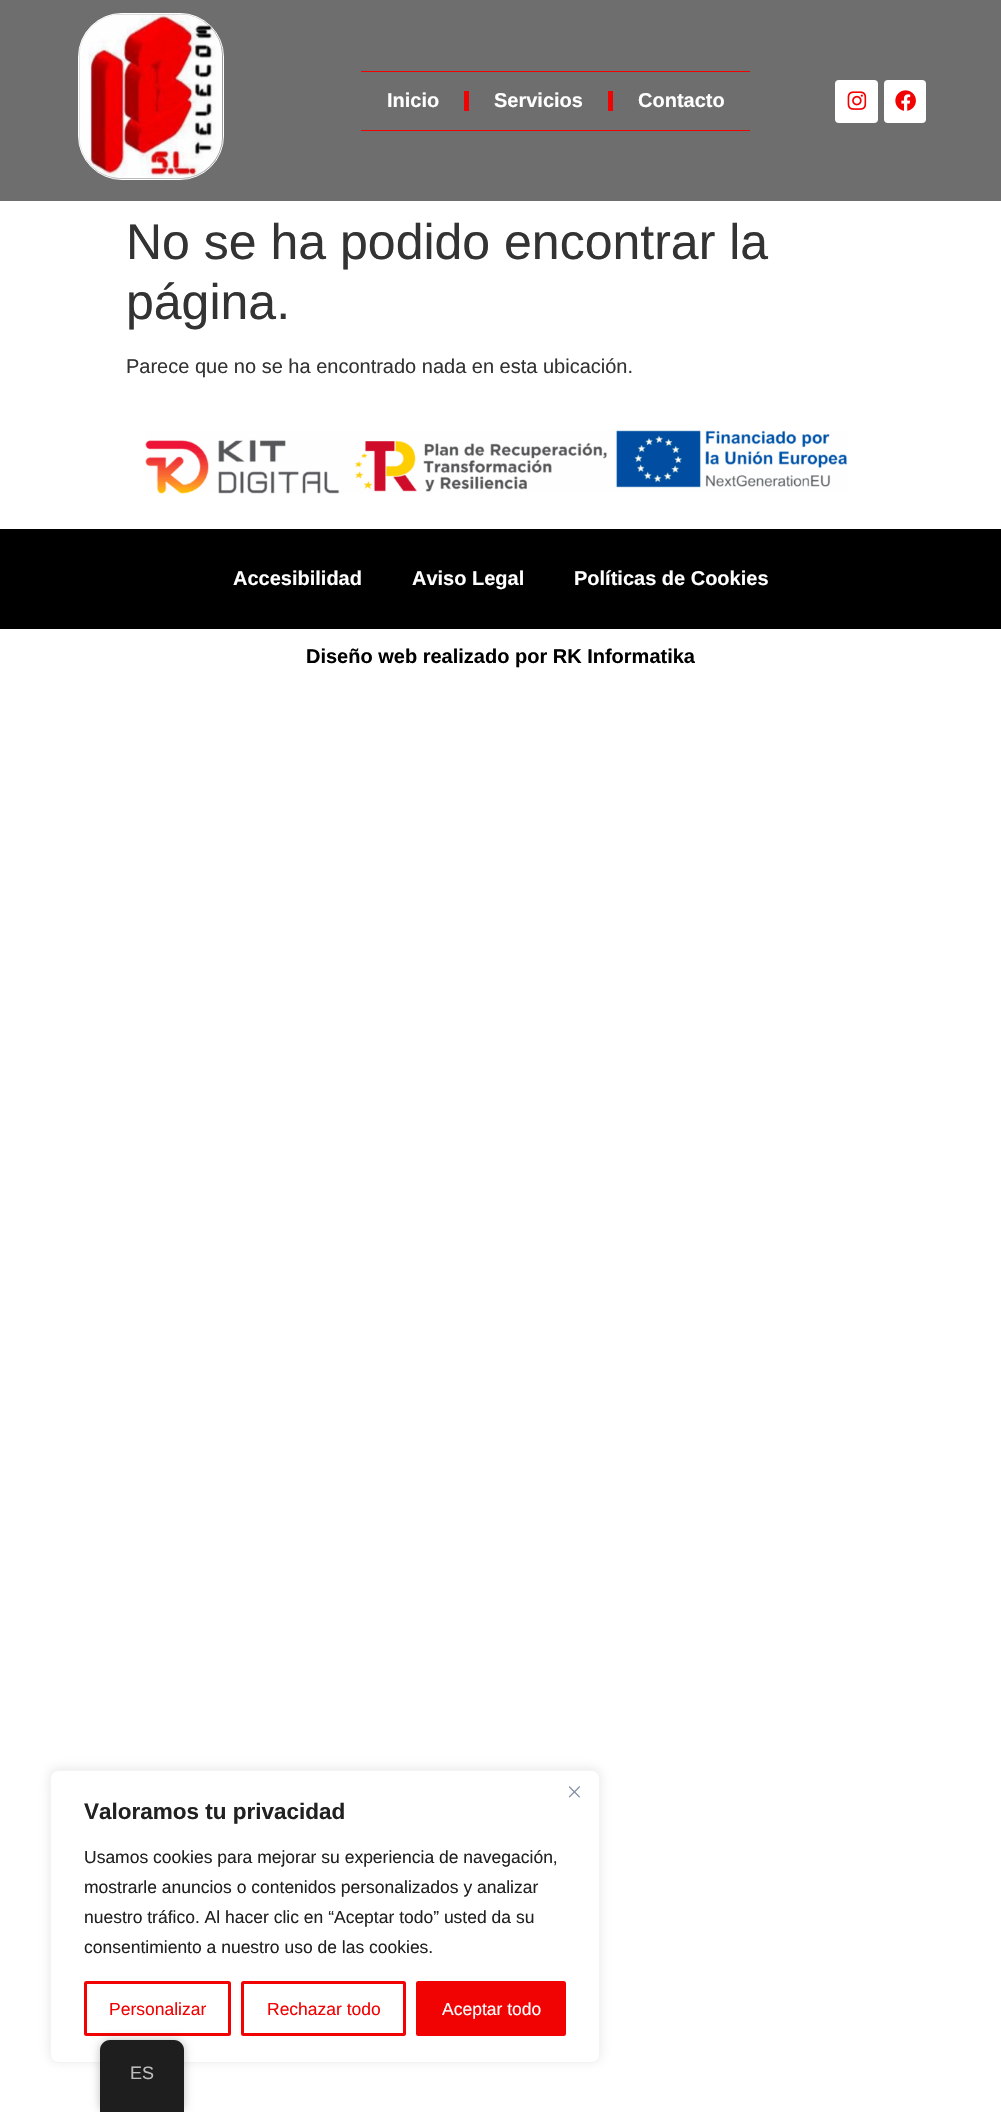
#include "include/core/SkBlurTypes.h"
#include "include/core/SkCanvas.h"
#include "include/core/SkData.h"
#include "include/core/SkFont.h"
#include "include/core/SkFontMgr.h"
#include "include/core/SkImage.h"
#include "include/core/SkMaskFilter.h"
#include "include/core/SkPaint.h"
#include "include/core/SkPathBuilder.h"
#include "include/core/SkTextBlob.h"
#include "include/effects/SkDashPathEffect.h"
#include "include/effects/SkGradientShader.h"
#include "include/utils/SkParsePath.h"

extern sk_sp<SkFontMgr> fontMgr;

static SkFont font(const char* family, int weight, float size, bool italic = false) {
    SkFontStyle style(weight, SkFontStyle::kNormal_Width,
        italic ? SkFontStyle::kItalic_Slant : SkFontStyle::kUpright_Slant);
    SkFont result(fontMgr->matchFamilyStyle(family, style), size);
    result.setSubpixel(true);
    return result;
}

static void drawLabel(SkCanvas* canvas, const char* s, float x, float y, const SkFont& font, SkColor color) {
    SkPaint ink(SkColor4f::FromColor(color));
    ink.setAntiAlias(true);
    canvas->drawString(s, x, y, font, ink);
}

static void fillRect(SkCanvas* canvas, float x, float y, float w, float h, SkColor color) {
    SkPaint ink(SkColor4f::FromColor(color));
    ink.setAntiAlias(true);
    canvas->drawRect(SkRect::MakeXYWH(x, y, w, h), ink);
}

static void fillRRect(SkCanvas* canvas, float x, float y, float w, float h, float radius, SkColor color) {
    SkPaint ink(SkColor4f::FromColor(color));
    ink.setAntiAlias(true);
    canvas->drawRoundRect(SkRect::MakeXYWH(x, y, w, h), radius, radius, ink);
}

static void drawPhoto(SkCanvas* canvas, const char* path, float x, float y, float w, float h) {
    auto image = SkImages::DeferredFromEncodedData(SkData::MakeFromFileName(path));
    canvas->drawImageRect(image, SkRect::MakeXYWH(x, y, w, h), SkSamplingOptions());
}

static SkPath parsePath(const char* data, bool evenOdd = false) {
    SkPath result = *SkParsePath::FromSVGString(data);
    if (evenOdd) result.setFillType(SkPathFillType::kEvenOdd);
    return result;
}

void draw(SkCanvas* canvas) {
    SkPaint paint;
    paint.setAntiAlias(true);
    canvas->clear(0xFFFFFFFF);
    fillRect(canvas, 0, 0, 1001, 201, 0xFF6E6E6E);
    paint.setStroke(true);
    paint.setStrokeWidth(1);
    paint.setColor(0xFFFFFFFF);
    canvas->drawRoundRect(SkRect::MakeXYWH(78.5f, 13.5f, 145, 166), 43.5f, 43.5f, paint);
    drawPhoto(canvas, "assets/img1.png", 79, 13, 144, 166);
    fillRect(canvas, 361, 71, 389, 1, 0xFFF10203);
    fillRect(canvas, 361, 130, 389, 1, 0xFFF10203);
    SkFont font1 = font("Liberation Sans", 700, 20);
    drawLabel(canvas, "Inicio", 387, 107, font1, 0xFFFFFFFF);
    fillRect(canvas, 464, 91, 5, 20, 0xFFF10203);
    drawLabel(canvas, "Servicios", 494, 107, font1, 0xFFFFFFFF);
    fillRect(canvas, 608, 91, 5, 20, 0xFFF10203);
    drawLabel(canvas, "Contacto", 638, 107, font1, 0xFFFFFFFF);
    fillRRect(canvas, 835, 80, 43, 43, 4, 0xFFFFFFFF);
    drawPhoto(canvas, "assets/img2.png", 847, 91, 20, 19);
    fillRRect(canvas, 884, 80, 42, 43, 4, 0xFFFFFFFF);
    drawPhoto(canvas, "assets/img3.png", 895, 90, 21, 21);
    SkFont font2 = font("Liberation Sans", 400, 50);
    drawLabel(canvas, "No se ha podido encontrar la", 126, 259, font2, 0xFF333333);
    drawLabel(canvas, "página.", 126, 319, font2, 0xFF333333);
    SkFont font3 = font("Liberation Sans", 400, 20);
    drawLabel(canvas, "Parece que no se ha encontrado nada en esta ubicación.", 126, 373, font3, 0xFF333333);
    drawPhoto(canvas, "assets/img4.png", 145, 430, 703, 64);
    fillRect(canvas, 0, 529, 1001, 100, 0xFF000000);
    drawLabel(canvas, "Accesibilidad", 233, 585, font1, 0xFFFFFFFF);
    drawLabel(canvas, "Aviso Legal", 412, 585, font1, 0xFFFFFFFF);
    drawLabel(canvas, "Políticas de Cookies", 574, 585, font1, 0xFFFFFFFF);
    drawLabel(canvas, "Diseño web realizado por RK Informatika", 306, 663, font1, 0xFF000000);
    paint.setStroke(false);
    paint.setColor(0x4DACABAB);
    paint.setMaskFilter(SkMaskFilter::MakeBlur(kNormal_SkBlurStyle, 6));
    canvas->drawRoundRect(SkRect::MakeXYWH(50, 1769, 550, 292), 8, 8, paint);
    paint.setMaskFilter(nullptr);
    paint.setColor(0xFFFFFFFF);
    canvas->drawRoundRect(SkRect::MakeXYWH(50.5f, 1770.5f, 549, 292), 7.5f, 7.5f, paint);
    paint.setStroke(true);
    paint.setColor(0xFFF4F4F4);
    canvas->drawRoundRect(SkRect::MakeXYWH(50.5f, 1770.5f, 549, 292), 7.5f, 7.5f, paint);
    drawPhoto(canvas, "assets/img5.png", 569, 1786, 11, 12);
    SkFont font4 = font("Liberation Sans", 700, 22.5f);
    drawLabel(canvas, "Valoramos tu privacidad", 84, 1819, font4, 0xFF212121);
    SkFont font5 = font("Liberation Sans", 400, 17.5f);
    drawLabel(canvas, "Usamos cookies para mejorar su experiencia de navegación,", 84, 1863, font5, 0xFF212121);
    drawLabel(canvas, "mostrarle anuncios o contenidos personalizados y analizar", 84, 1893, font5, 0xFF212121);
    drawLabel(canvas, "nuestro tráfico. Al hacer clic en “Aceptar todo” usted da su", 84, 1923, font5, 0xFF212121);
    drawLabel(canvas, "consentimiento a nuestro uso de las cookies.", 84, 1953, font5, 0xFF212121);
    paint.setStrokeWidth(3);
    paint.setColor(0xFFF10203);
    canvas->drawRoundRect(SkRect::MakeXYWH(85.5f, 1982.5f, 144, 52), 1, 1, paint);
    drawLabel(canvas, "Personalizar", 109, 2015, font5, 0xFFF10203);
    canvas->drawRoundRect(SkRect::MakeXYWH(242.5f, 1982.5f, 162, 52), 1, 1, paint);
    drawLabel(canvas, "Rechazar todo", 267, 2015, font5, 0xFFF10203);
    paint.setStroke(false);
    canvas->drawRoundRect(SkRect::MakeXYWH(417.5f, 1982.5f, 147, 52), 1, 1, paint);
    paint.setStroke(true);
    canvas->drawRoundRect(SkRect::MakeXYWH(417.5f, 1982.5f, 147, 52), 1, 1, paint);
    drawLabel(canvas, "Aceptar todo", 442, 2015, font5, 0xFFFFFFFF);
    paint.setStroke(false);
    paint.setColor(0x40000000);
    paint.setMaskFilter(SkMaskFilter::MakeBlur(kNormal_SkBlurStyle, 5));
    canvas->drawRoundRect(SkRect::MakeXYWH(100, 2040, 84, 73), 10, 10, paint);
    paint.setMaskFilter(nullptr);
    paint.setColor(0xFF1E1E1E);
    canvas->drawPath(parsePath("M110 2040H174C179.5 2040 184 2044.5 184 2050V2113H100V2050C100 2044.5 104.5 2040 110 2040Z"), paint);
    SkFont font6 = font("Liberation Sans", 400, 18);
    drawLabel(canvas, "ES", 130, 2079, font6, 0xFFBDBDBD);
}
